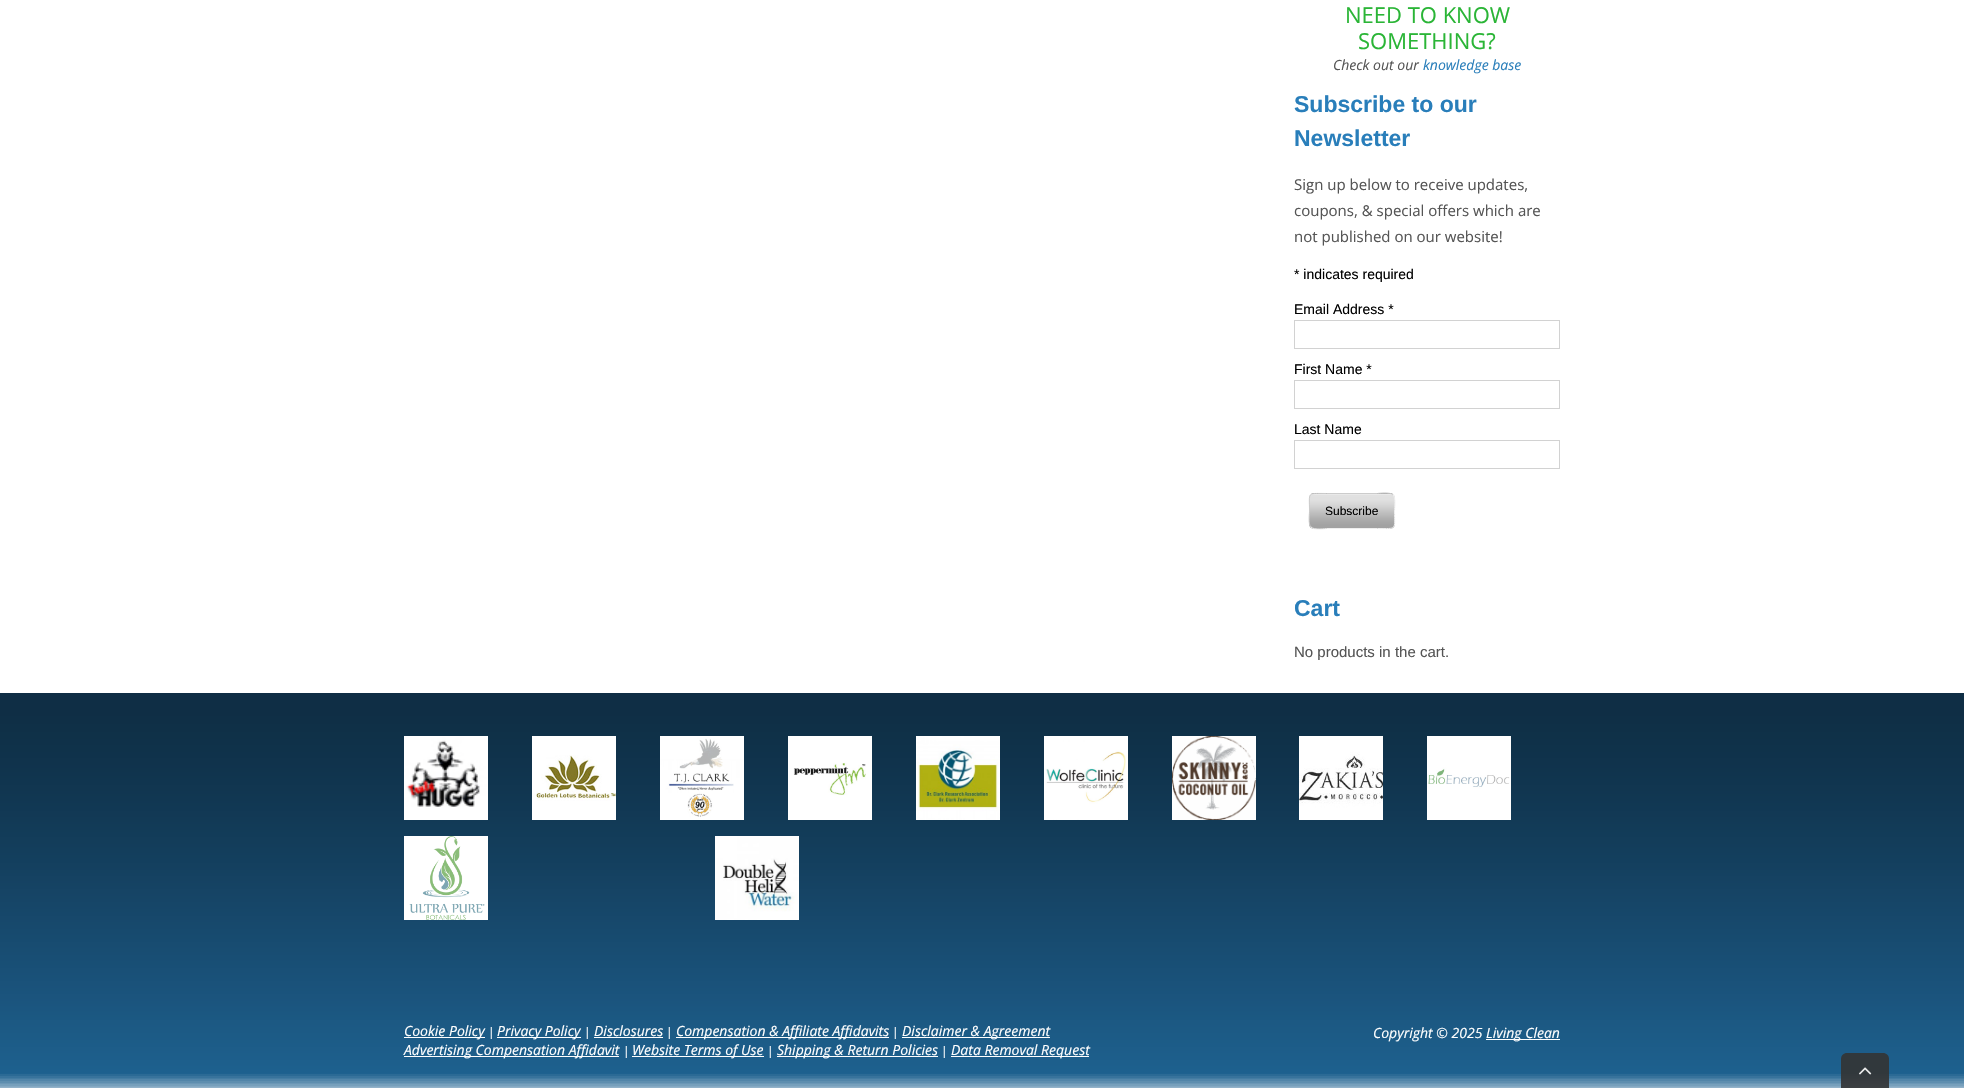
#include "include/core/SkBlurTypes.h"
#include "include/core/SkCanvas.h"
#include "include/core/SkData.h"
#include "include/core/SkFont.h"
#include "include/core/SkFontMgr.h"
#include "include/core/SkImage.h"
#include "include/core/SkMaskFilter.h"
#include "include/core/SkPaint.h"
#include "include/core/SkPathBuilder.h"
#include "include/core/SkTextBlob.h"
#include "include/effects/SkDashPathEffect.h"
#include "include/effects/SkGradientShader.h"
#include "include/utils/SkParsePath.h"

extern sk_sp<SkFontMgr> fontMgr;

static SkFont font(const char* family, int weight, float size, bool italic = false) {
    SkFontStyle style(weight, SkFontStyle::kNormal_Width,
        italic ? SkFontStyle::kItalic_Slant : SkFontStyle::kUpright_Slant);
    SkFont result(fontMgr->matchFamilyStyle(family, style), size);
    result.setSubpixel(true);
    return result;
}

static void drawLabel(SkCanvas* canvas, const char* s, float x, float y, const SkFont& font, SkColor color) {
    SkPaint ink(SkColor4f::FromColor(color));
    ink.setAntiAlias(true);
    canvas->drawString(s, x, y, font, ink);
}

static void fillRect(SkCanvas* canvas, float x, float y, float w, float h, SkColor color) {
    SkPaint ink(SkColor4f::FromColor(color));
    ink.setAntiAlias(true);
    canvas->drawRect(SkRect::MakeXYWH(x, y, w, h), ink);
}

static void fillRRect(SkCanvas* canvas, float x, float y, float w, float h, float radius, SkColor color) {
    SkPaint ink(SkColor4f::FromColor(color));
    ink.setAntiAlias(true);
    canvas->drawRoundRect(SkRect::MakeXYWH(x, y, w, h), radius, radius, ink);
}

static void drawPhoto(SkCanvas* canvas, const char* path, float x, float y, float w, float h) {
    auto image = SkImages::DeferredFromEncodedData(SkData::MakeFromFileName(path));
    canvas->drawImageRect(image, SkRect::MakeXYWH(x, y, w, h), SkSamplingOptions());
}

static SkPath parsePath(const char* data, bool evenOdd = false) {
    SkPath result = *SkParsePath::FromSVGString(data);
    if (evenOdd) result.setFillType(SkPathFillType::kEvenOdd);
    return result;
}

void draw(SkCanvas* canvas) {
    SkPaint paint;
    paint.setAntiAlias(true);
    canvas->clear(0xFFFFFFFF);
    SkFont font1 = font("Open Sans", 400, 22);
    drawLabel(canvas, "NEED TO KNOW", 1345, 23, font1, 0xFF2AB536);
    drawLabel(canvas, "SOMETHING?", 1358, 49, font1, 0xFF2AB536);
    SkFont font2 = font("Open Sans", 400, 14, true);
    drawLabel(canvas, "Check out our", 1333, 70, font2, 0xFF555555);
    drawLabel(canvas, "knowledge base", 1423, 70, font2, 0xFF297EBA);
    SkFont font3 = font("Liberation Sans", 700, 23);
    drawLabel(canvas, "Subscribe to our", 1294, 112, font3, 0xFF297EBA);
    drawLabel(canvas, "Newsletter", 1294, 146, font3, 0xFF297EBA);
    SkFont font4 = font("Open Sans", 400, 15);
    drawLabel(canvas, "Sign up below to receive updates,", 1294, 190, font4, 0xFF555555);
    drawLabel(canvas, "coupons, & special offers which are", 1294, 216, font4, 0xFF555555);
    drawLabel(canvas, "not published on our website!", 1294, 242, font4, 0xFF555555);
    SkFont font5 = font("Liberation Sans", 400, 14);
    drawLabel(canvas, "* indicates required", 1294, 279, font5, 0xFF000000);
    drawLabel(canvas, "Email Address *", 1294, 314, font5, 0xFF000000);
    paint.setStroke(true);
    paint.setStrokeWidth(1);
    paint.setColor(0xFFD2D2D2);
    canvas->drawRect(SkRect::MakeXYWH(1294.5f, 320.5f, 265, 28), paint);
    drawLabel(canvas, "First Name *", 1294, 374, font5, 0xFF000000);
    canvas->drawRect(SkRect::MakeXYWH(1294.5f, 380.5f, 265, 28), paint);
    drawLabel(canvas, "Last Name", 1294, 434, font5, 0xFF000000);
    canvas->drawRect(SkRect::MakeXYWH(1294.5f, 440.5f, 265, 28), paint);
    fillRRect(canvas, 1309, 493, 86, 36, 5, 0xFFD7D7D7);
    drawPhoto(canvas, "assets/img1.png", 1309, 493, 86, 36);
    paint.setColor(0xFFEFEFEF);
    canvas->drawPath(parsePath("M1393 495C1396 497.5 1394.5 507.5 1394.5 511C1394.5 530.5 1397.5 528.5 1377.5 528.5H1326.5C1326.5 528.5 1314 530.5 1311 527"), paint);
    paint.setColor(0xFFCCCCCC);
    canvas->drawPath(parsePath("M1311 527C1308 524.5 1309.5 514.5 1309.5 511C1309.5 491.5 1306.5 493.5 1326.5 493.5H1377.5C1377.5 493.5 1390 491.5 1393 495"), paint);
    SkFont font6 = font("Liberation Sans", 400, 12);
    drawLabel(canvas, "Subscribe", 1325, 515, font6, 0xFF000000);
    drawLabel(canvas, "Cart", 1294, 616, font3, 0xFF297EBA);
    SkFont font7 = font("Liberation Sans", 400, 15);
    drawLabel(canvas, "No products in the cart.", 1294, 657, font7, 0xFF555555);
    drawPhoto(canvas, "assets/img2.png", 0, 693, 1964, 395);
    drawPhoto(canvas, "assets/img3.png", 404, 736, 84, 84);
    drawPhoto(canvas, "assets/img4.png", 532, 736, 84, 84);
    drawPhoto(canvas, "assets/img5.png", 660, 736, 84, 84);
    drawPhoto(canvas, "assets/img6.png", 788, 736, 84, 84);
    drawPhoto(canvas, "assets/img7.png", 916, 736, 84, 84);
    drawPhoto(canvas, "assets/img8.png", 1044, 736, 84, 84);
    drawPhoto(canvas, "assets/img9.png", 1172, 736, 84, 84);
    drawPhoto(canvas, "assets/img10.png", 1299, 736, 84, 84);
    drawPhoto(canvas, "assets/img11.png", 1427, 736, 84, 84);
    drawPhoto(canvas, "assets/img12.png", 404, 836, 84, 84);
    drawPhoto(canvas, "assets/img13.png", 715, 836, 84, 84);
    fillRect(canvas, 404, 1037, 81, 1, 0xFFFFFFFF);
    drawLabel(canvas, "Cookie Policy", 404, 1036, font2, 0xFFFFFFFF);
    SkFont font8 = font("Open Sans", 400, 12);
    drawLabel(canvas, "|", 488, 1036, font8, 0xFFFFFFFF);
    fillRect(canvas, 497, 1037, 84, 1, 0xFFFFFFFF);
    drawLabel(canvas, "Privacy Policy", 497, 1036, font2, 0xFFFFFFFF);
    drawLabel(canvas, "|", 584, 1036, font8, 0xFFFFFFFF);
    drawLabel(canvas, "Disclosures", 594, 1036, font2, 0xFFFFFFFF);
    fillRect(canvas, 594, 1037, 69, 1, 0xFFFFFFFF);
    drawLabel(canvas, "|", 666, 1036, font8, 0xFFFFFFFF);
    fillRect(canvas, 676, 1037, 213, 1, 0xFFFFFFFF);
    drawLabel(canvas, "Compensation & Affiliate Affidavits", 676, 1036, font2, 0xFFFFFFFF);
    drawLabel(canvas, "|", 892, 1036, font8, 0xFFFFFFFF);
    fillRect(canvas, 902, 1037, 148, 1, 0xFFFFFFFF);
    drawLabel(canvas, "Disclaimer & Agreement", 902, 1036, font2, 0xFFFFFFFF);
    fillRect(canvas, 404, 1056, 215, 1, 0xFFFFFFFF);
    drawLabel(canvas, "Advertising Compensation Affidavit", 404, 1055, font2, 0xFFFFFFFF);
    drawLabel(canvas, "|", 623, 1055, font8, 0xFFFFFFFF);
    fillRect(canvas, 632, 1056, 132, 1, 0xFFFFFFFF);
    drawLabel(canvas, "Website Terms of Use", 632, 1055, font2, 0xFFFFFFFF);
    drawLabel(canvas, "|", 767, 1055, font8, 0xFFFFFFFF);
    fillRect(canvas, 777, 1056, 161, 1, 0xFFFFFFFF);
    drawLabel(canvas, "Shipping & Return Policies", 777, 1055, font2, 0xFFFFFFFF);
    drawLabel(canvas, "|", 941, 1055, font8, 0xFFFFFFFF);
    fillRect(canvas, 951, 1056, 138, 1, 0xFFFFFFFF);
    drawLabel(canvas, "Data Removal Request", 951, 1055, font2, 0xFFFFFFFF);
    drawLabel(canvas, "Copyright © 2025", 1373, 1038, font2, 0xFFFFFFFF);
    fillRect(canvas, 1486, 1039, 74, 1, 0xFFFFFFFF);
    drawLabel(canvas, "Living Clean", 1486, 1038, font2, 0xFFFFFFFF);
    paint.setStroke(false);
    paint.setColor(0xE6333333);
    canvas->drawPath(parsePath("M1847 1053H1883C1886.5 1053 1889 1055.5 1889 1059V1088H1841V1059C1841 1055.5 1843.5 1053 1847 1053Z"), paint);
    drawPhoto(canvas, "assets/img14.png", 1859, 1067, 13, 8);
}
